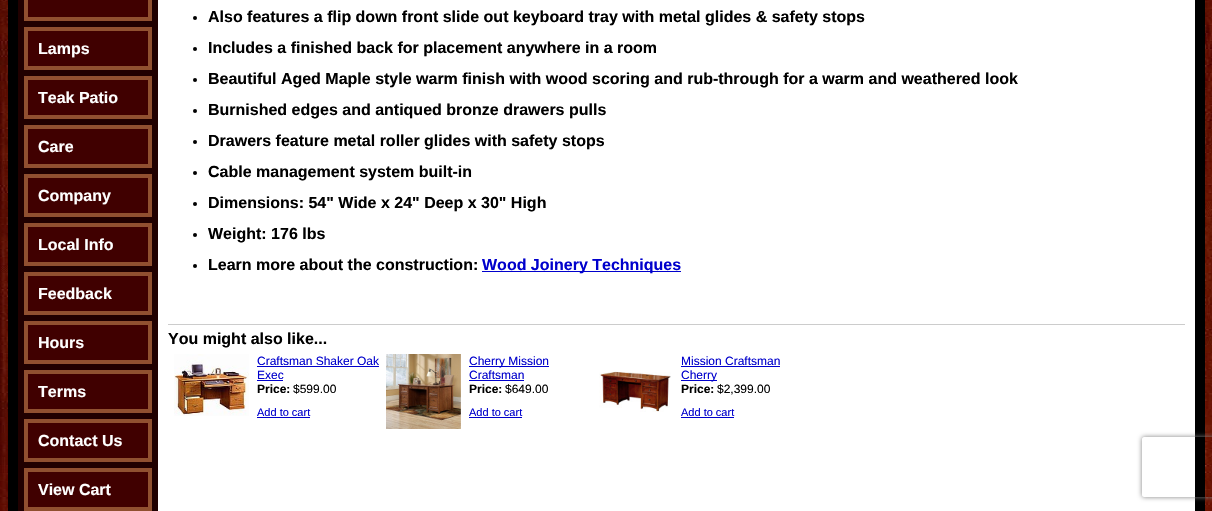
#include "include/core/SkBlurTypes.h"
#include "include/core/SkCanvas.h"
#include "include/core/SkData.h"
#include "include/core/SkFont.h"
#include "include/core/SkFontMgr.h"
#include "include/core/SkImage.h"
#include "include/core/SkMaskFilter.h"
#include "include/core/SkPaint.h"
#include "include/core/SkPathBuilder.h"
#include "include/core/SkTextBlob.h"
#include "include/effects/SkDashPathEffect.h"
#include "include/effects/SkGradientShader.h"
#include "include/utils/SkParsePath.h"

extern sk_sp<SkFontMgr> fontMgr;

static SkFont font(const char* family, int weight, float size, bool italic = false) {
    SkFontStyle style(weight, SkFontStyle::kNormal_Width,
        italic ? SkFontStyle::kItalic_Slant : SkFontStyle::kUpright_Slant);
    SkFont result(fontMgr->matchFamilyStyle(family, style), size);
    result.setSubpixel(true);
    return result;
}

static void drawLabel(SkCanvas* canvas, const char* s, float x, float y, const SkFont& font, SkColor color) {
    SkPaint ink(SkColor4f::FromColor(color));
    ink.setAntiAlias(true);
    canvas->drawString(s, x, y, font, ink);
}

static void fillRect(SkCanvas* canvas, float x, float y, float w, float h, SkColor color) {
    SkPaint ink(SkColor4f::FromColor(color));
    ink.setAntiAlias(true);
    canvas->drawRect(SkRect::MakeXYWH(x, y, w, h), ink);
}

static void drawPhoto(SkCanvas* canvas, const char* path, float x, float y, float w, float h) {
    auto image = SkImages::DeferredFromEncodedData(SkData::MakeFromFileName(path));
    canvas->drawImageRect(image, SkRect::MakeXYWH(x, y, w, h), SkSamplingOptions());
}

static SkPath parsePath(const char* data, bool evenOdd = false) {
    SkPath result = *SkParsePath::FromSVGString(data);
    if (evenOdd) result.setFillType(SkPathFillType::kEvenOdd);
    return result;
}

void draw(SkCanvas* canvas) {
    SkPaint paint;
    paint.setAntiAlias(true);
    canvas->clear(0xFFFFFFFF);
    drawPhoto(canvas, "assets/img1.png", 0, 0, 1212, 511);
    fillRect(canvas, 8, 0, 1197, 511, 0xFF000000);
    fillRect(canvas, 18, 0, 140, 511, 0xFF200000);
    fillRect(canvas, 24, 0, 128, 21, 0xFF905030);
    fillRect(canvas, 28, 0, 120, 17, 0xFF400000);
    fillRect(canvas, 24, 27, 128, 43, 0xFF905030);
    fillRect(canvas, 28, 31, 120, 35, 0xFF400000);
    SkFont font1 = font("Liberation Sans", 700, 16);
    drawLabel(canvas, "Lamps", 38, 54, font1, 0xFFFFFFFF);
    fillRect(canvas, 24, 76, 128, 43, 0xFF905030);
    fillRect(canvas, 28, 80, 120, 35, 0xFF400000);
    drawLabel(canvas, "Teak Patio", 38, 103, font1, 0xFFFFFFFF);
    fillRect(canvas, 24, 125, 128, 43, 0xFF905030);
    fillRect(canvas, 28, 129, 120, 35, 0xFF400000);
    drawLabel(canvas, "Care", 38, 152, font1, 0xFFFFFFFF);
    fillRect(canvas, 24, 174, 128, 43, 0xFF905030);
    fillRect(canvas, 28, 178, 120, 35, 0xFF400000);
    drawLabel(canvas, "Company", 38, 201, font1, 0xFFFFFFFF);
    fillRect(canvas, 24, 223, 128, 43, 0xFF905030);
    fillRect(canvas, 28, 227, 120, 35, 0xFF400000);
    drawLabel(canvas, "Local Info", 38, 250, font1, 0xFFFFFFFF);
    fillRect(canvas, 24, 272, 128, 43, 0xFF905030);
    fillRect(canvas, 28, 276, 120, 35, 0xFF400000);
    drawLabel(canvas, "Feedback", 38, 299, font1, 0xFFFFFFFF);
    fillRect(canvas, 24, 321, 128, 43, 0xFF905030);
    fillRect(canvas, 28, 325, 120, 35, 0xFF400000);
    drawLabel(canvas, "Hours", 38, 348, font1, 0xFFFFFFFF);
    fillRect(canvas, 24, 370, 128, 43, 0xFF905030);
    fillRect(canvas, 28, 374, 120, 35, 0xFF400000);
    drawLabel(canvas, "Terms", 38, 397, font1, 0xFFFFFFFF);
    fillRect(canvas, 24, 419, 128, 43, 0xFF905030);
    fillRect(canvas, 28, 423, 120, 35, 0xFF400000);
    drawLabel(canvas, "Contact Us", 38, 446, font1, 0xFFFFFFFF);
    fillRect(canvas, 24, 468, 128, 43, 0xFF905030);
    fillRect(canvas, 28, 472, 120, 35, 0xFF400000);
    drawLabel(canvas, "View Cart", 38, 495, font1, 0xFFFFFFFF);
    fillRect(canvas, 158, 0, 1037, 511, 0xFFFFFFFF);
    paint.setColor(0xFF000000);
    canvas->drawCircle(195, 18, 2, paint);
    drawLabel(canvas, "Also features a flip down front slide out keyboard tray with metal glides & safety stops", 208, 22, font1, 0xFF000000);
    canvas->drawCircle(195, 49, 2, paint);
    drawLabel(canvas, "Includes a finished back for placement anywhere in a room", 208, 53, font1, 0xFF000000);
    canvas->drawCircle(195, 80, 2, paint);
    drawLabel(canvas, "Beautiful Aged Maple style warm finish with wood scoring and rub-through for a warm and weathered look", 208, 84, font1, 0xFF000000);
    canvas->drawCircle(195, 111, 2, paint);
    drawLabel(canvas, "Burnished edges and antiqued bronze drawers pulls", 208, 115, font1, 0xFF000000);
    canvas->drawCircle(195, 142, 2, paint);
    drawLabel(canvas, "Drawers feature metal roller glides with safety stops", 208, 146, font1, 0xFF000000);
    canvas->drawCircle(195, 173, 2, paint);
    drawLabel(canvas, "Cable management system built-in", 208, 177, font1, 0xFF000000);
    canvas->drawCircle(195, 204, 2, paint);
    drawLabel(canvas, "Dimensions: 54\" Wide x 24\" Deep x 30\" High", 208, 208, font1, 0xFF000000);
    canvas->drawCircle(195, 235, 2, paint);
    drawLabel(canvas, "Weight: 176 lbs", 208, 239, font1, 0xFF000000);
    canvas->drawCircle(195, 266, 2, paint);
    drawLabel(canvas, "Learn more about the construction:", 208, 270, font1, 0xFF000000);
    fillRect(canvas, 482, 271, 199, 1, 0xFF0000CC);
    drawLabel(canvas, "Wood Joinery Techniques", 482, 270, font1, 0xFF0000CC);
    fillRect(canvas, 168, 324, 1017, 1, 0xFFCCCCCC);
    drawLabel(canvas, "You might also like...", 168, 344, font1, 0xFF000000);
    drawPhoto(canvas, "assets/img2.png", 174, 354, 75, 62);
    SkFont font2 = font("Liberation Sans", 400, 12);
    drawLabel(canvas, "Craftsman Shaker Oak", 257, 365, font2, 0xFF0000CC);
    fillRect(canvas, 257, 366, 122, 1, 0xFF0000CC);
    drawLabel(canvas, "Exec", 257, 379, font2, 0xFF0000CC);
    fillRect(canvas, 257, 380, 26, 1, 0xFF0000CC);
    SkFont font3 = font("Liberation Sans", 700, 12);
    drawLabel(canvas, "Price:", 257, 393, font3, 0xFF000000);
    drawLabel(canvas, "$599.00", 293, 393, font2, 0xFF000000);
    SkFont font4 = font("Liberation Sans", 400, 11);
    drawLabel(canvas, "Add to cart", 257, 416, font4, 0xFF0000CC);
    fillRect(canvas, 257, 417, 53, 1, 0xFF0000CC);
    drawPhoto(canvas, "assets/img3.png", 386, 354, 75, 75);
    fillRect(canvas, 469, 366, 80, 1, 0xFF0000CC);
    drawLabel(canvas, "Cherry Mission", 469, 365, font2, 0xFF0000CC);
    drawLabel(canvas, "Craftsman", 469, 379, font2, 0xFF0000CC);
    fillRect(canvas, 469, 380, 55, 1, 0xFF0000CC);
    drawLabel(canvas, "Price:", 469, 393, font3, 0xFF000000);
    drawLabel(canvas, "$649.00", 505, 393, font2, 0xFF000000);
    drawLabel(canvas, "Add to cart", 469, 416, font4, 0xFF0000CC);
    fillRect(canvas, 469, 417, 53, 1, 0xFF0000CC);
    drawPhoto(canvas, "assets/img4.png", 599, 371, 72, 41);
    drawLabel(canvas, "Mission Craftsman", 681, 365, font2, 0xFF0000CC);
    fillRect(canvas, 681, 366, 99, 1, 0xFF0000CC);
    fillRect(canvas, 681, 380, 36, 1, 0xFF0000CC);
    drawLabel(canvas, "Cherry", 681, 379, font2, 0xFF0000CC);
    drawLabel(canvas, "Price:", 681, 393, font3, 0xFF000000);
    drawLabel(canvas, "$2,399.00", 717, 393, font2, 0xFF000000);
    drawLabel(canvas, "Add to cart", 681, 416, font4, 0xFF0000CC);
    fillRect(canvas, 681, 417, 53, 1, 0xFF0000CC);
    canvas->save();
    canvas->clipPath(parsePath("M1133 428H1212V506H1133ZM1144 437H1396C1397 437 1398 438 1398 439V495C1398 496 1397 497 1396 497H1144C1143 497 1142 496 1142 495V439C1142 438 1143 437 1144 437Z", true), true);
    paint.setColor(0xFF808080);
    paint.setMaskFilter(SkMaskFilter::MakeBlur(kNormal_SkBlurStyle, 2.5f));
    canvas->drawRoundRect(SkRect::MakeXYWH(1142, 437, 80, 60), 2, 2, paint);
    paint.setMaskFilter(nullptr);
    canvas->restore();
}
